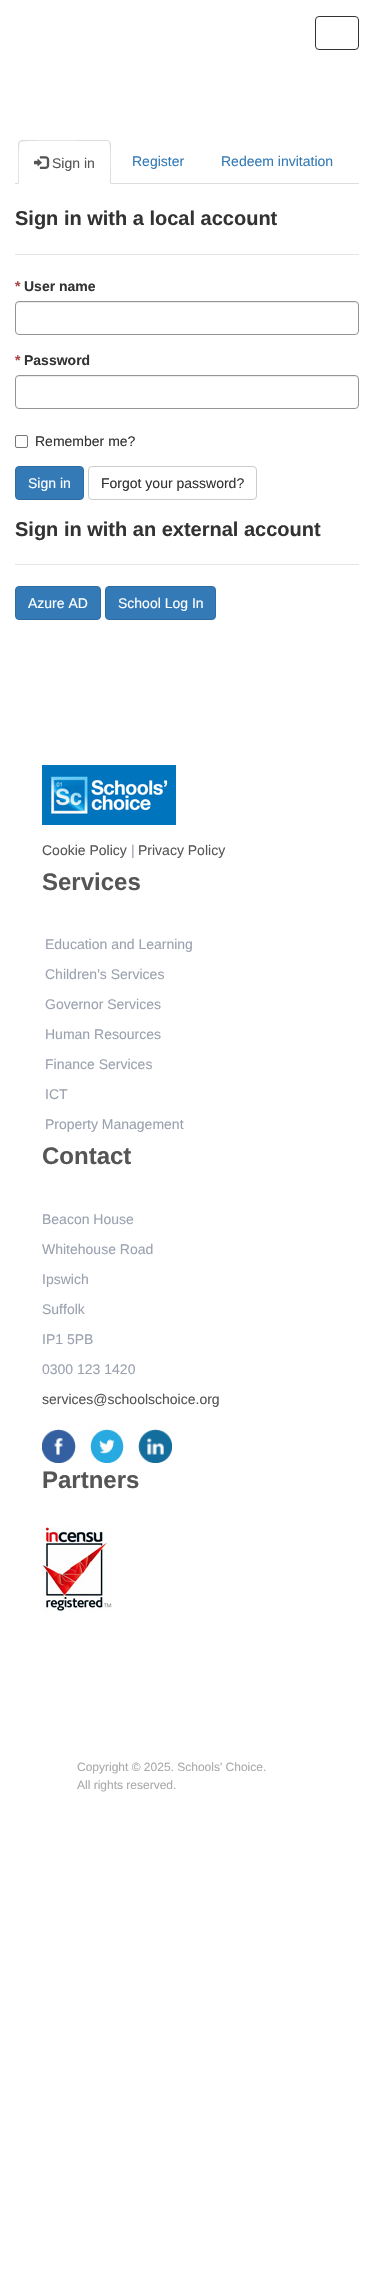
#include "include/core/SkBlurTypes.h"
#include "include/core/SkCanvas.h"
#include "include/core/SkData.h"
#include "include/core/SkFont.h"
#include "include/core/SkFontMgr.h"
#include "include/core/SkImage.h"
#include "include/core/SkMaskFilter.h"
#include "include/core/SkPaint.h"
#include "include/core/SkPathBuilder.h"
#include "include/core/SkTextBlob.h"
#include "include/effects/SkDashPathEffect.h"
#include "include/effects/SkGradientShader.h"
#include "include/utils/SkParsePath.h"

extern sk_sp<SkFontMgr> fontMgr;

static SkFont font(const char* family, int weight, float size, bool italic = false) {
    SkFontStyle style(weight, SkFontStyle::kNormal_Width,
        italic ? SkFontStyle::kItalic_Slant : SkFontStyle::kUpright_Slant);
    SkFont result(fontMgr->matchFamilyStyle(family, style), size);
    result.setSubpixel(true);
    return result;
}

static void drawLabel(SkCanvas* canvas, const char* s, float x, float y, const SkFont& font, SkColor color) {
    SkPaint ink(SkColor4f::FromColor(color));
    ink.setAntiAlias(true);
    canvas->drawString(s, x, y, font, ink);
}

static void fillRect(SkCanvas* canvas, float x, float y, float w, float h, SkColor color) {
    SkPaint ink(SkColor4f::FromColor(color));
    ink.setAntiAlias(true);
    canvas->drawRect(SkRect::MakeXYWH(x, y, w, h), ink);
}

static void drawPhoto(SkCanvas* canvas, const char* path, float x, float y, float w, float h) {
    auto image = SkImages::DeferredFromEncodedData(SkData::MakeFromFileName(path));
    canvas->drawImageRect(image, SkRect::MakeXYWH(x, y, w, h), SkSamplingOptions());
}

static SkPath parsePath(const char* data, bool evenOdd = false) {
    SkPath result = *SkParsePath::FromSVGString(data);
    if (evenOdd) result.setFillType(SkPathFillType::kEvenOdd);
    return result;
}

void draw(SkCanvas* canvas) {
    SkPaint paint;
    paint.setAntiAlias(true);
    canvas->clear(0xFFFFFFFF);
    paint.setStroke(true);
    paint.setStrokeWidth(1);
    paint.setColor(0xFF333333);
    canvas->drawRoundRect(SkRect::MakeXYWH(315.5f, 16.5f, 43, 33), 3.5f, 3.5f, paint);
    fillRect(canvas, 15, 183, 344, 1, 0xFFDDDDDD);
    paint.setStroke(false);
    paint.setColor(0xFFFFFFFF);
    canvas->drawPath(parsePath("M22 140H107C109 140 111 142 111 144V184H18V144C18 142 20 140 22 140Z"), paint);
    paint.setColor(0xFFDDDDDD);
    canvas->drawPath(parsePath("M22 140L19 141L20 142C22 140 85 141 93 141H107L109 142L110 141L107 140Z"), paint);
    canvas->drawPath(parsePath("M111 184V144C111 143 110 142 110 141L109 142C111 144 110 178 110 183Z"), paint);
    canvas->drawPath(parsePath("M18 184L19 183C19 178 18 144 20 142L19 141L18 144Z"), paint);
    drawPhoto(canvas, "assets/img1.png", 34, 156, 16, 13);
    SkFont font1 = font("Liberation Sans", 400, 14);
    drawLabel(canvas, "Sign in", 52, 168, font1, 0xFF555555);
    drawLabel(canvas, "Register", 132, 166, font1, 0xFF337AB7);
    drawLabel(canvas, "Redeem invitation", 221, 166, font1, 0xFF337AB7);
    fillRect(canvas, 15, 254, 344, 1, 0xFFE5E5E5);
    SkFont font2 = font("Liberation Sans", 700, 20);
    drawLabel(canvas, "Sign in with a local account", 15, 225, font2, 0xFF333333);
    SkFont font3 = font("Liberation Sans", 700, 14);
    drawLabel(canvas, "*", 15, 291, font3, 0xFFA94442);
    drawLabel(canvas, "User name", 24, 291, font3, 0xFF333333);
    paint.setColor(0xFFECECEC);
    canvas->drawPath(parsePath("M19 303H355C357 303 358 304 358 306C358 304 357 302 355 302H19C17 302 16 304 16 306C16 304 17 303 19 303Z"), paint);
    paint.setStroke(true);
    paint.setColor(0xFF949494);
    canvas->drawRoundRect(SkRect::MakeXYWH(15.5f, 301.5f, 343, 33), 3.5f, 3.5f, paint);
    drawLabel(canvas, "*", 15, 365, font3, 0xFFA94442);
    drawLabel(canvas, "Password", 24, 365, font3, 0xFF333333);
    paint.setStroke(false);
    paint.setColor(0xFFECECEC);
    canvas->drawPath(parsePath("M19 377H355C357 377 358 378 358 380C358 378 357 376 355 376H19C17 376 16 378 16 380C16 378 17 377 19 377Z"), paint);
    paint.setStroke(true);
    paint.setColor(0xFF949494);
    canvas->drawRoundRect(SkRect::MakeXYWH(15.5f, 375.5f, 343, 33), 3.5f, 3.5f, paint);
    paint.setColor(0xFF767676);
    canvas->drawRoundRect(SkRect::MakeXYWH(15.5f, 435.5f, 12, 12), 1.5f, 1.5f, paint);
    drawLabel(canvas, "Remember me?", 35, 446, font1, 0xFF333333);
    paint.setStroke(false);
    paint.setColor(0xFF337AB7);
    canvas->drawRoundRect(SkRect::MakeXYWH(15.5f, 466.5f, 68, 33), 3.5f, 3.5f, paint);
    paint.setStroke(true);
    paint.setColor(0xFF2E6DA4);
    canvas->drawRoundRect(SkRect::MakeXYWH(15.5f, 466.5f, 68, 33), 3.5f, 3.5f, paint);
    drawLabel(canvas, "Sign in", 28, 488, font1, 0xFFFFFFFF);
    paint.setColor(0xFFCCCCCC);
    canvas->drawRoundRect(SkRect::MakeXYWH(88.5f, 466.5f, 168, 33), 3.5f, 3.5f, paint);
    drawLabel(canvas, "Forgot your password?", 101, 488, font1, 0xFF333333);
    fillRect(canvas, 15, 564, 344, 1, 0xFFE5E5E5);
    drawLabel(canvas, "Sign in with an external account", 15, 536, font2, 0xFF333333);
    paint.setStroke(false);
    paint.setColor(0xFF337AB7);
    canvas->drawRoundRect(SkRect::MakeXYWH(15.5f, 586.5f, 85, 33), 3.5f, 3.5f, paint);
    paint.setStroke(true);
    paint.setColor(0xFF2E6DA4);
    canvas->drawRoundRect(SkRect::MakeXYWH(15.5f, 586.5f, 85, 33), 3.5f, 3.5f, paint);
    drawLabel(canvas, "Azure AD", 28, 608, font1, 0xFFFFFFFF);
    paint.setStroke(false);
    paint.setColor(0xFF337AB7);
    canvas->drawRoundRect(SkRect::MakeXYWH(105.5f, 586.5f, 110, 33), 3.5f, 3.5f, paint);
    paint.setStroke(true);
    paint.setColor(0xFF2E6DA4);
    canvas->drawRoundRect(SkRect::MakeXYWH(105.5f, 586.5f, 110, 33), 3.5f, 3.5f, paint);
    drawLabel(canvas, "School Log In", 118, 608, font1, 0xFFFFFFFF);
    drawPhoto(canvas, "assets/img2.png", 42, 765, 134, 60);
    drawLabel(canvas, "Cookie Policy", 42, 855, font1, 0xFF555555);
    drawLabel(canvas, "|", 131, 855, font1, 0xFF9BA2AF);
    drawLabel(canvas, "Privacy Policy", 138, 855, font1, 0xFF555555);
    SkFont font4 = font("Liberation Sans", 700, 24);
    drawLabel(canvas, "Services", 42, 890, font4, 0xFF555555);
    drawLabel(canvas, "Education and Learning", 45, 949, font1, 0xFF9BA2AF);
    drawLabel(canvas, "Children's Services", 45, 979, font1, 0xFF9BA2AF);
    drawLabel(canvas, "Governor Services", 45, 1009, font1, 0xFF9BA2AF);
    drawLabel(canvas, "Human Resources", 45, 1039, font1, 0xFF9BA2AF);
    drawLabel(canvas, "Finance Services", 45, 1069, font1, 0xFF9BA2AF);
    drawLabel(canvas, "ICT", 45, 1099, font1, 0xFF9BA2AF);
    drawLabel(canvas, "Property Management", 45, 1129, font1, 0xFF9BA2AF);
    drawLabel(canvas, "Contact", 42, 1164, font4, 0xFF555555);
    drawLabel(canvas, "Beacon House", 42, 1224, font1, 0xFF9BA2AF);
    drawLabel(canvas, "Whitehouse Road", 42, 1254, font1, 0xFF9BA2AF);
    drawLabel(canvas, "Ipswich", 42, 1284, font1, 0xFF9BA2AF);
    drawLabel(canvas, "Suffolk", 42, 1314, font1, 0xFF9BA2AF);
    drawLabel(canvas, "IP1 5PB", 42, 1344, font1, 0xFF9BA2AF);
    drawLabel(canvas, "0300 123 1420", 42, 1374, font1, 0xFF9BA2AF);
    drawLabel(canvas, "services@schoolschoice.org", 42, 1404, font1, 0xFF555555);
    drawPhoto(canvas, "assets/img3.png", 42, 1429, 34, 34);
    drawPhoto(canvas, "assets/img4.png", 90, 1429, 34, 34);
    drawPhoto(canvas, "assets/img5.png", 138, 1429, 34, 34);
    drawLabel(canvas, "Partners", 42, 1488, font4, 0xFF555555);
    drawPhoto(canvas, "assets/img6.png", 42, 1527, 70, 85);
    SkFont font5 = font("Liberation Sans", 400, 12);
    drawLabel(canvas, "Copyright © 2025. Schools' Choice.", 77, 1771, font5, 0xFFAAAAAA);
    drawLabel(canvas, "All rights reserved.", 77, 1789, font5, 0xFFAAAAAA);
}
